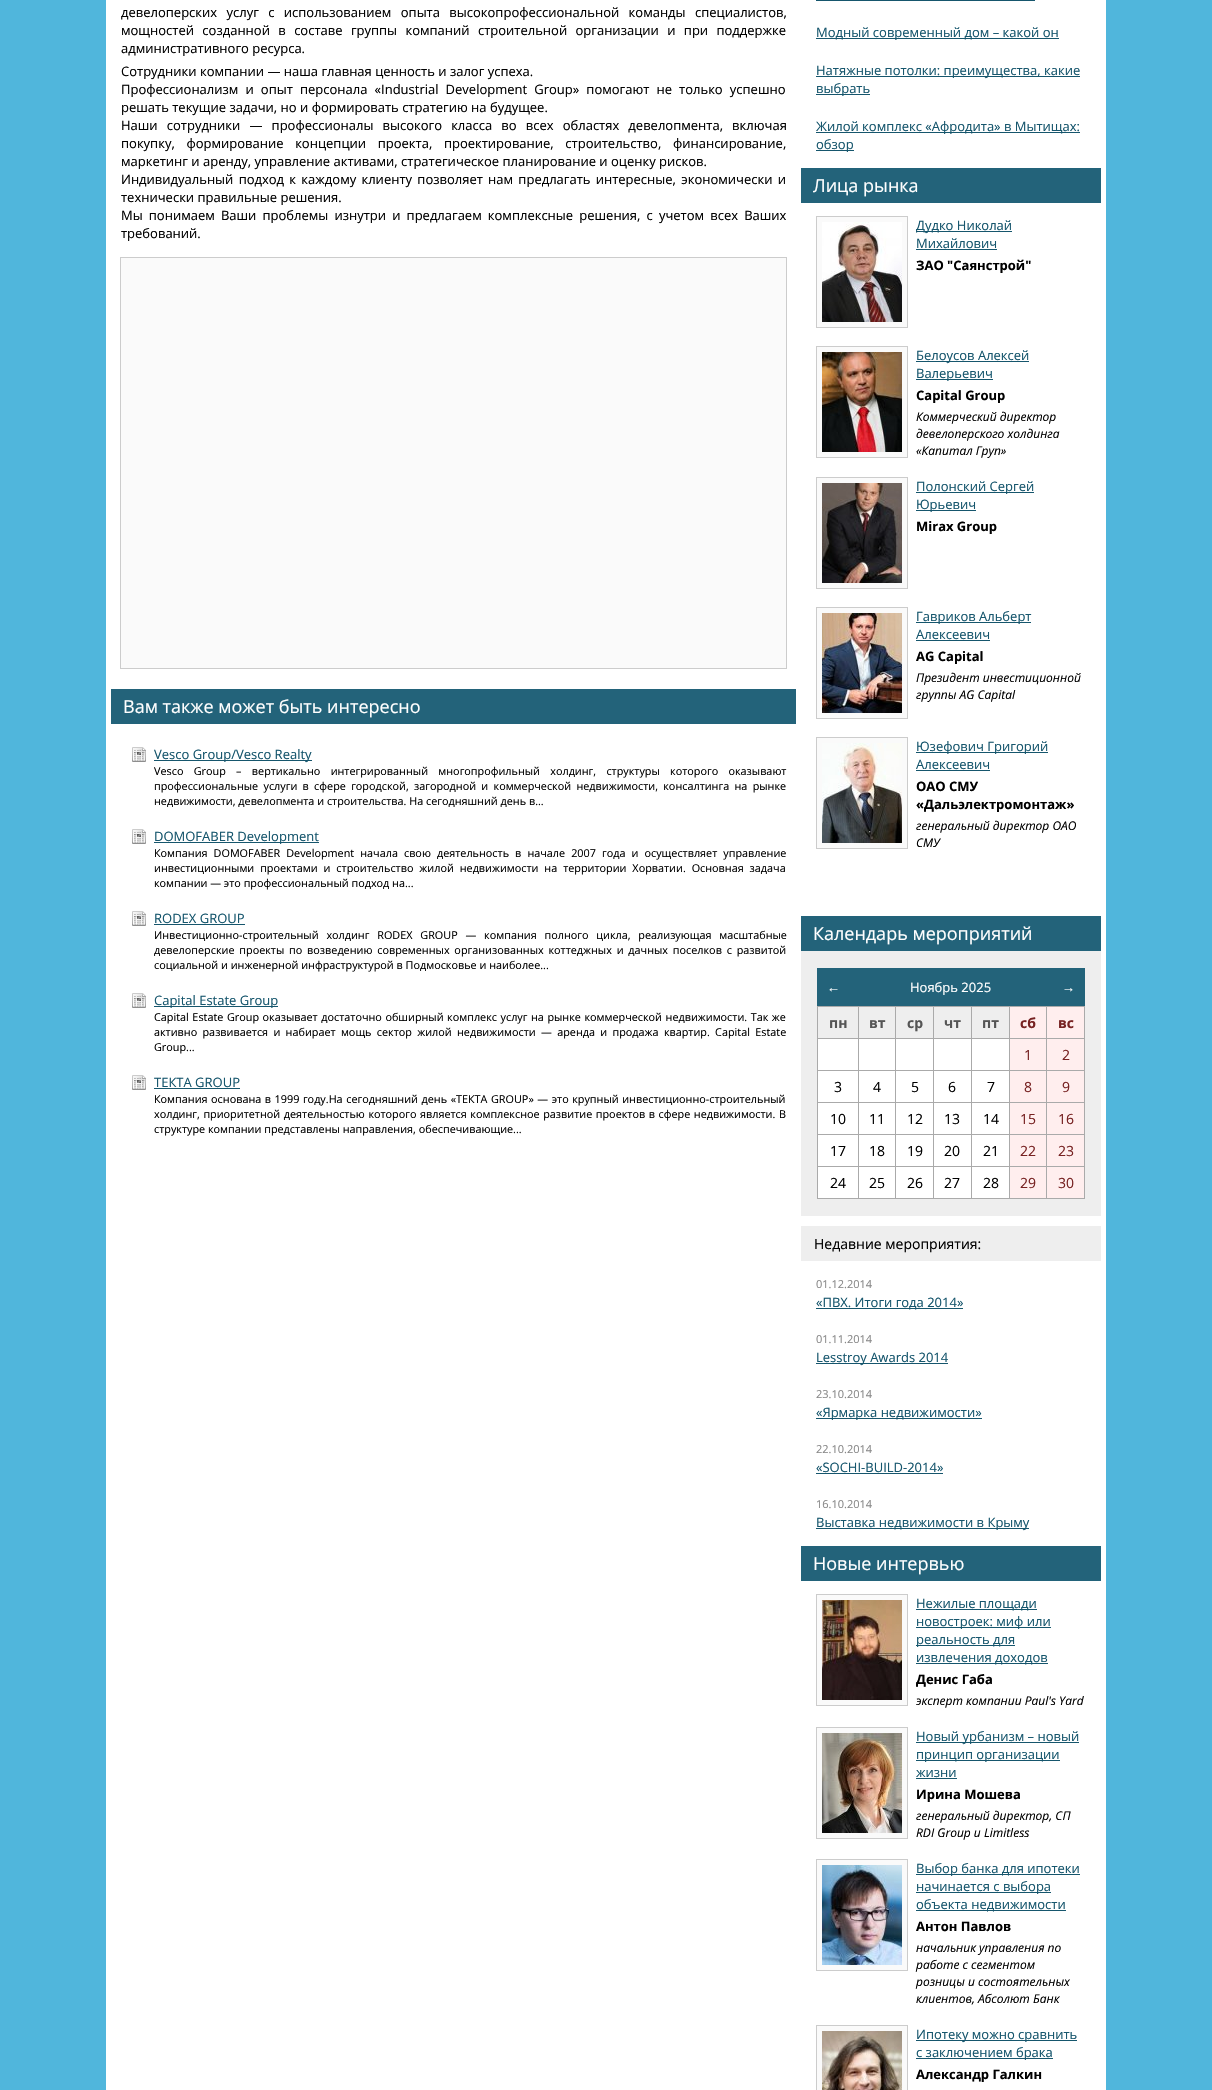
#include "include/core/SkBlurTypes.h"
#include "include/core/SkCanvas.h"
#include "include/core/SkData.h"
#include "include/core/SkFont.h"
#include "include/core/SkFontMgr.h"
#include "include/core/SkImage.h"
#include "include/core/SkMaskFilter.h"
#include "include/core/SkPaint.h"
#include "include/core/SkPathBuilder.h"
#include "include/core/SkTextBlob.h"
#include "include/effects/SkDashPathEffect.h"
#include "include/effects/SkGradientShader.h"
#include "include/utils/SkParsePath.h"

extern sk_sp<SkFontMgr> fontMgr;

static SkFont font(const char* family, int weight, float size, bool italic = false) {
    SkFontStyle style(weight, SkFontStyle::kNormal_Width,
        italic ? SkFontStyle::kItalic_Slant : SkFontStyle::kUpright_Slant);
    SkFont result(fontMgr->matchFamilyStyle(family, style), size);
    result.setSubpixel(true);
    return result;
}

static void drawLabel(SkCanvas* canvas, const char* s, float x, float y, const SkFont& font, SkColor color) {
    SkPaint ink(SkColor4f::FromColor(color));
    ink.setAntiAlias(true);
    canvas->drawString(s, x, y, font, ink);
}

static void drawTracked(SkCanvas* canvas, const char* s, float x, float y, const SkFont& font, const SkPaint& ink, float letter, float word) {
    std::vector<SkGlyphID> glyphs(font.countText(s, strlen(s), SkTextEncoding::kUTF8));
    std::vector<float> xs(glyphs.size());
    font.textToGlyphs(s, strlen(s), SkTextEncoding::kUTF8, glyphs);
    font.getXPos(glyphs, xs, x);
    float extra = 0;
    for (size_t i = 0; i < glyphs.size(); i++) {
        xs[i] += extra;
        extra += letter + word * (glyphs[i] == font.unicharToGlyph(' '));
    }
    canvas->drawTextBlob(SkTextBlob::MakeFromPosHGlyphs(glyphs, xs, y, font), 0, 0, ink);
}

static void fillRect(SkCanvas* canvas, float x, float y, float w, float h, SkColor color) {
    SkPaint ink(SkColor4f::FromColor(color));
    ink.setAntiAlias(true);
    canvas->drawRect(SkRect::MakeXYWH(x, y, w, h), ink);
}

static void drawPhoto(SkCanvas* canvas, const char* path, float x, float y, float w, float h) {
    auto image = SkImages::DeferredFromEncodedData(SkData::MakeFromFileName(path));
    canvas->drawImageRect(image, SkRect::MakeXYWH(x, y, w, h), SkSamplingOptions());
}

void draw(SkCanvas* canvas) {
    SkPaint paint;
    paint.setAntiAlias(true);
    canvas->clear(0xFF50B6DC);
    fillRect(canvas, 106, 0, 1000, 2090, 0xFFFFFFFF);
    SkFont font1 = font("Open Sans", 400, 13);
    paint.setColor(0xFF000000);
    drawTracked(canvas, "девелоперских услуг с использованием опыта высокопрофессиональной команды специалистов,", 121, 17, font1, paint, 0, 6);
    drawTracked(canvas, "мощностей созданной в составе группы компаний строительной организации и при поддержке", 121, 35, font1, paint, 0, 5);
    drawLabel(canvas, "административного ресурса.", 121, 53, font1, 0xFF000000);
    drawLabel(canvas, "Сотрудники компании — наша главная ценность и залог успеха.", 121, 76, font1, 0xFF000000);
    drawTracked(canvas, "Профессионализм и опыт персонала «Industrial Development Group» помогают не только успешно", 121, 94, font1, paint, 0, 3.75f);
    drawLabel(canvas, "решать текущие задачи, но и формировать стратегию на будущее.", 121, 112, font1, 0xFF000000);
    drawTracked(canvas, "Наши сотрудники — профессионалы высокого класса во всех областях девелопмента, включая", 121, 130, font1, paint, 0, 5.75f);
    drawTracked(canvas, "покупку, формирование концепции проекта, проектирование, строительство, финансирование,", 121, 148, font1, paint, 0, 8.25f);
    drawLabel(canvas, "маркетинг и аренду, управление активами, стратегическое планирование и оценку рисков.", 121, 166, font1, 0xFF000000);
    drawTracked(canvas, "Индивидуальный подход к каждому клиенту позволяет нам предлагать интересные, экономически и", 121, 184, font1, paint, 0, 1.9f);
    drawLabel(canvas, "технически правильные решения.", 121, 202, font1, 0xFF000000);
    drawTracked(canvas, "Мы понимаем Ваши проблемы изнутри и предлагаем комплексные решения, с учетом всех Ваших", 121, 220, font1, paint, 0, 2.75f);
    drawLabel(canvas, "требований.", 121, 238, font1, 0xFF000000);
    paint.setColor(0xFFFAFAFA);
    canvas->drawRect(SkRect::MakeXYWH(120.5f, 257.5f, 666, 411), paint);
    paint.setStroke(true);
    paint.setStrokeWidth(1);
    paint.setColor(0xFFCCCCCC);
    canvas->drawRect(SkRect::MakeXYWH(120.5f, 257.5f, 666, 411), paint);
    fillRect(canvas, 111, 689, 685, 35, 0xFF23637A);
    SkFont font2 = font("Open Sans", 400, 18);
    drawLabel(canvas, "Вам также может быть интересно", 123, 713, font2, 0xFFFFFFFF);
    drawPhoto(canvas, "assets/img1.png", 132, 747, 14, 15);
    fillRect(canvas, 154, 760, 158, 1, 0xFF16566D);
    drawLabel(canvas, "Vesco Group/Vesco Realty", 154, 759, font1, 0xFF16566D);
    SkFont font3 = font("Open Sans", 400, 10.83f);
    paint.setStroke(false);
    paint.setColor(0xFF000000);
    drawTracked(canvas, "Vesco Group – вертикально интегрированный многопрофильный холдинг, структуры которого оказывают", 154, 775, font3, paint, 0, 7.5f);
    drawTracked(canvas, "профессиональные услуги в сфере городской, загородной и коммерческой недвижимости, консалтинга на рынке", 154, 790, font3, paint, 0, 2.5f);
    drawLabel(canvas, "недвижимости, девелопмента и строительства. На сегодняшний день в...", 154, 805, font3, 0xFF000000);
    drawPhoto(canvas, "assets/img1.png", 132, 829, 14, 15);
    fillRect(canvas, 154, 842, 165, 1, 0xFF16566D);
    drawLabel(canvas, "DOMOFABER Development", 154, 841, font1, 0xFF16566D);
    drawTracked(canvas, "Компания DOMOFABER Development начала свою деятельность в начале 2007 года и осуществляет управление", 154, 857, font3, paint, 0, 3.25f);
    drawTracked(canvas, "инвестиционными проектами и строительство жилой недвижимости на территории Хорватии. Основная задача", 154, 872, font3, paint, 0, 3.1f);
    drawLabel(canvas, "компании — это профессиональный подход на...", 154, 887, font3, 0xFF000000);
    drawPhoto(canvas, "assets/img1.png", 132, 911, 14, 15);
    drawLabel(canvas, "RODEX GROUP", 154, 923, font1, 0xFF16566D);
    fillRect(canvas, 154, 924, 91, 1, 0xFF16566D);
    drawTracked(canvas, "Инвестиционно-строительный холдинг RODEX GROUP — компания полного цикла, реализующая масштабные", 154, 939, font3, paint, 0, 5);
    drawTracked(canvas, "девелоперские проекты по возведению современных организованных коттеджных и дачных поселков с развитой", 154, 954, font3, paint, 0, 2);
    drawLabel(canvas, "социальной и инженерной инфраструктурой в Подмосковье и наиболее...", 154, 969, font3, 0xFF000000);
    drawPhoto(canvas, "assets/img1.png", 132, 993, 14, 15);
    fillRect(canvas, 154, 1006, 124, 1, 0xFF16566D);
    drawLabel(canvas, "Сapital Еstate Group", 154, 1005, font1, 0xFF16566D);
    drawTracked(canvas, "Сapital Еstate Group оказывает достаточно обширный комплекс услуг на рынке коммерческой недвижимости. Так же", 154, 1021, font3, paint, 0, 0.75f);
    drawTracked(canvas, "активно развивается и набирает мощь сектор жилой недвижимости — аренда и продажа квартир. Сapital Еstate", 154, 1036, font3, paint, 0, 2.5f);
    drawLabel(canvas, "Group...", 154, 1051, font3, 0xFF000000);
    drawPhoto(canvas, "assets/img1.png", 132, 1075, 14, 15);
    drawLabel(canvas, "ТЕКТА GROUP", 154, 1087, font1, 0xFF16566D);
    fillRect(canvas, 154, 1088, 86, 1, 0xFF16566D);
    drawTracked(canvas, "Компания основана в 1999 году.На сегодняшний день «ТЕКТА GROUP» — это крупный инвестиционно-строительный", 154, 1103, font3, paint, 0, 0.75f);
    drawTracked(canvas, "холдинг, приоритетной деятельностью которого является комплексное развитие проектов в сфере недвижимости. В", 154, 1118, font3, paint, 0, 0.75f);
    drawLabel(canvas, "структуре компании представлены направления, обеспечивающие...", 154, 1133, font3, 0xFF000000);
    fillRect(canvas, 816, 0, 219, 1, 0xFF16566D);
    fillRect(canvas, 816, 38, 243, 1, 0xFF16566D);
    drawLabel(canvas, "Модный современный дом – какой он", 816, 37, font1, 0xFF16566D);
    fillRect(canvas, 816, 76, 264, 1, 0xFF16566D);
    drawLabel(canvas, "Натяжные потолки: преимущества, какие", 816, 75, font1, 0xFF16566D);
    fillRect(canvas, 816, 94, 54, 1, 0xFF16566D);
    drawLabel(canvas, "выбрать", 816, 93, font1, 0xFF16566D);
    fillRect(canvas, 816, 132, 264, 1, 0xFF16566D);
    drawLabel(canvas, "Жилой комплекс «Афродита» в Мытищах:", 816, 131, font1, 0xFF16566D);
    fillRect(canvas, 816, 150, 38, 1, 0xFF16566D);
    drawLabel(canvas, "обзор", 816, 149, font1, 0xFF16566D);
    fillRect(canvas, 801, 168, 300, 35, 0xFF23637A);
    drawLabel(canvas, "Лица рынка", 813, 192, font2, 0xFFFFFFFF);
    paint.setColor(0xFFFAFAFA);
    canvas->drawRect(SkRect::MakeXYWH(816.5f, 216.5f, 91, 111), paint);
    paint.setStroke(true);
    paint.setColor(0xFFCCCCCC);
    canvas->drawRect(SkRect::MakeXYWH(816.5f, 216.5f, 91, 111), paint);
    drawPhoto(canvas, "assets/img2.png", 822, 222, 80, 100);
    fillRect(canvas, 916, 231, 96, 1, 0xFF16566D);
    drawLabel(canvas, "Дудко Николай", 916, 230, font1, 0xFF16566D);
    drawLabel(canvas, "Михайлович", 916, 248, font1, 0xFF16566D);
    fillRect(canvas, 916, 249, 81, 1, 0xFF16566D);
    SkFont font4 = font("Open Sans", 700, 13);
    drawLabel(canvas, "ЗАО \"Саянстрой\"", 916, 270, font4, 0xFF000000);
    paint.setStroke(false);
    paint.setColor(0xFFFAFAFA);
    canvas->drawRect(SkRect::MakeXYWH(816.5f, 346.5f, 91, 111), paint);
    paint.setStroke(true);
    paint.setColor(0xFFCCCCCC);
    canvas->drawRect(SkRect::MakeXYWH(816.5f, 346.5f, 91, 111), paint);
    drawPhoto(canvas, "assets/img3.png", 822, 352, 80, 100);
    fillRect(canvas, 916, 361, 113, 1, 0xFF16566D);
    drawLabel(canvas, "Белоусов Алексей", 916, 360, font1, 0xFF16566D);
    fillRect(canvas, 916, 379, 77, 1, 0xFF16566D);
    drawLabel(canvas, "Валерьевич", 916, 378, font1, 0xFF16566D);
    drawLabel(canvas, "Capital Group", 916, 400, font4, 0xFF000000);
    SkFont font5 = font("Open Sans", 400, 12, true);
    drawLabel(canvas, "Коммерческий директор", 916, 421, font5, 0xFF000000);
    drawLabel(canvas, "девелоперского холдинга", 916, 438, font5, 0xFF000000);
    drawLabel(canvas, "«Капитал Груп»", 916, 455, font5, 0xFF000000);
    paint.setStroke(false);
    paint.setColor(0xFFFAFAFA);
    canvas->drawRect(SkRect::MakeXYWH(816.5f, 477.5f, 91, 111), paint);
    paint.setStroke(true);
    paint.setColor(0xFFCCCCCC);
    canvas->drawRect(SkRect::MakeXYWH(816.5f, 477.5f, 91, 111), paint);
    drawPhoto(canvas, "assets/img4.png", 822, 483, 80, 100);
    fillRect(canvas, 916, 492, 118, 1, 0xFF16566D);
    drawLabel(canvas, "Полонский Сергей", 916, 491, font1, 0xFF16566D);
    fillRect(canvas, 916, 510, 60, 1, 0xFF16566D);
    drawLabel(canvas, "Юрьевич", 916, 509, font1, 0xFF16566D);
    drawLabel(canvas, "Mirax Group", 916, 531, font4, 0xFF000000);
    paint.setStroke(false);
    paint.setColor(0xFFFAFAFA);
    canvas->drawRect(SkRect::MakeXYWH(816.5f, 607.5f, 91, 111), paint);
    paint.setStroke(true);
    paint.setColor(0xFFCCCCCC);
    canvas->drawRect(SkRect::MakeXYWH(816.5f, 607.5f, 91, 111), paint);
    drawPhoto(canvas, "assets/img5.png", 822, 613, 80, 100);
    fillRect(canvas, 916, 622, 115, 1, 0xFF16566D);
    drawLabel(canvas, "Гавриков Альберт", 916, 621, font1, 0xFF16566D);
    drawLabel(canvas, "Алексеевич", 916, 639, font1, 0xFF16566D);
    fillRect(canvas, 916, 640, 74, 1, 0xFF16566D);
    drawLabel(canvas, "AG Capital", 916, 661, font4, 0xFF000000);
    drawLabel(canvas, "Президент инвестиционной", 916, 682, font5, 0xFF000000);
    drawLabel(canvas, "группы AG Capital", 916, 699, font5, 0xFF000000);
    paint.setStroke(false);
    paint.setColor(0xFFFAFAFA);
    canvas->drawRect(SkRect::MakeXYWH(816.5f, 737.5f, 91, 111), paint);
    paint.setStroke(true);
    paint.setColor(0xFFCCCCCC);
    canvas->drawRect(SkRect::MakeXYWH(816.5f, 737.5f, 91, 111), paint);
    drawPhoto(canvas, "assets/img6.png", 822, 743, 80, 100);
    fillRect(canvas, 916, 752, 132, 1, 0xFF16566D);
    drawLabel(canvas, "Юзефович Григорий", 916, 751, font1, 0xFF16566D);
    drawLabel(canvas, "Алексеевич", 916, 769, font1, 0xFF16566D);
    fillRect(canvas, 916, 770, 74, 1, 0xFF16566D);
    drawLabel(canvas, "ОАО СМУ", 916, 791, font4, 0xFF000000);
    drawLabel(canvas, "«Дальэлектромонтаж»", 916, 809, font4, 0xFF000000);
    drawLabel(canvas, "генеральный директор ОАО", 916, 830, font5, 0xFF000000);
    drawLabel(canvas, "СМУ", 916, 847, font5, 0xFF000000);
    fillRect(canvas, 801, 916, 300, 35, 0xFF23637A);
    drawLabel(canvas, "Календарь мероприятий", 813, 940, font2, 0xFFFFFFFF);
    fillRect(canvas, 801, 951, 300, 265, 0xFFEEEEEE);
    fillRect(canvas, 817, 1006, 268, 193, 0xFFAAAAAA);
    fillRect(canvas, 817, 968, 268, 38, 0xFF23637A);
    SkFont font6 = font("Liberation Sans", 400, 13);
    drawLabel(canvas, "←", 827, 992, font6, 0xFFFFFFFF);
    drawLabel(canvas, "Ноябрь 2025", 910, 992, font1, 0xFFFFFFFF);
    drawLabel(canvas, "→", 1062, 992, font6, 0xFFFFFFFF);
    fillRect(canvas, 818, 1007, 40, 31, 0xFFEEEEEE);
    SkFont font7 = font("Open Sans", 700, 14);
    drawLabel(canvas, "пн", 829, 1028, font7, 0xFF555555);
    fillRect(canvas, 859, 1007, 36, 31, 0xFFEEEEEE);
    drawLabel(canvas, "вт", 869, 1028, font7, 0xFF555555);
    fillRect(canvas, 896, 1007, 37, 31, 0xFFEEEEEE);
    drawLabel(canvas, "ср", 907, 1028, font7, 0xFF555555);
    fillRect(canvas, 934, 1007, 37, 31, 0xFFEEEEEE);
    drawLabel(canvas, "чт", 944, 1028, font7, 0xFF555555);
    fillRect(canvas, 972, 1007, 37, 31, 0xFFEEEEEE);
    drawLabel(canvas, "пт", 982, 1028, font7, 0xFF555555);
    fillRect(canvas, 1010, 1007, 36, 31, 0xFFFFEEEE);
    drawLabel(canvas, "сб", 1020, 1028, font7, 0xFF772222);
    fillRect(canvas, 1047, 1007, 37, 31, 0xFFFFEEEE);
    drawLabel(canvas, "вс", 1058, 1028, font7, 0xFF772222);
    fillRect(canvas, 818, 1039, 40, 31, 0xFFFFFFFF);
    fillRect(canvas, 859, 1039, 36, 31, 0xFFFFFFFF);
    fillRect(canvas, 896, 1039, 37, 31, 0xFFFFFFFF);
    fillRect(canvas, 934, 1039, 37, 31, 0xFFFFFFFF);
    fillRect(canvas, 972, 1039, 37, 31, 0xFFFFFFFF);
    fillRect(canvas, 1010, 1039, 36, 31, 0xFFFFEEEE);
    SkFont font8 = font("Open Sans", 400, 14);
    drawLabel(canvas, "1", 1024, 1060, font8, 0xFF772222);
    fillRect(canvas, 1047, 1039, 37, 31, 0xFFFFEEEE);
    drawLabel(canvas, "2", 1062, 1060, font8, 0xFF772222);
    fillRect(canvas, 818, 1071, 40, 31, 0xFFFFFFFF);
    drawLabel(canvas, "3", 834, 1092, font8, 0xFF000000);
    fillRect(canvas, 859, 1071, 36, 31, 0xFFFFFFFF);
    drawLabel(canvas, "4", 873, 1092, font8, 0xFF000000);
    fillRect(canvas, 896, 1071, 37, 31, 0xFFFFFFFF);
    drawLabel(canvas, "5", 911, 1092, font8, 0xFF000000);
    fillRect(canvas, 934, 1071, 37, 31, 0xFFFFFFFF);
    drawLabel(canvas, "6", 948, 1092, font8, 0xFF000000);
    fillRect(canvas, 972, 1071, 37, 31, 0xFFFFFFFF);
    drawLabel(canvas, "7", 987, 1092, font8, 0xFF000000);
    fillRect(canvas, 1010, 1071, 36, 31, 0xFFFFEEEE);
    drawLabel(canvas, "8", 1024, 1092, font8, 0xFF772222);
    fillRect(canvas, 1047, 1071, 37, 31, 0xFFFFEEEE);
    drawLabel(canvas, "9", 1062, 1092, font8, 0xFF772222);
    fillRect(canvas, 818, 1103, 40, 31, 0xFFFFFFFF);
    drawLabel(canvas, "10", 830, 1124, font8, 0xFF000000);
    fillRect(canvas, 859, 1103, 36, 31, 0xFFFFFFFF);
    drawLabel(canvas, "11", 869, 1124, font8, 0xFF000000);
    fillRect(canvas, 896, 1103, 37, 31, 0xFFFFFFFF);
    drawLabel(canvas, "12", 907, 1124, font8, 0xFF000000);
    fillRect(canvas, 934, 1103, 37, 31, 0xFFFFFFFF);
    drawLabel(canvas, "13", 944, 1124, font8, 0xFF000000);
    fillRect(canvas, 972, 1103, 37, 31, 0xFFFFFFFF);
    drawLabel(canvas, "14", 983, 1124, font8, 0xFF000000);
    fillRect(canvas, 1010, 1103, 36, 31, 0xFFFFEEEE);
    drawLabel(canvas, "15", 1020, 1124, font8, 0xFF772222);
    fillRect(canvas, 1047, 1103, 37, 31, 0xFFFFEEEE);
    drawLabel(canvas, "16", 1058, 1124, font8, 0xFF772222);
    fillRect(canvas, 818, 1135, 40, 31, 0xFFFFFFFF);
    drawLabel(canvas, "17", 830, 1156, font8, 0xFF000000);
    fillRect(canvas, 859, 1135, 36, 31, 0xFFFFFFFF);
    drawLabel(canvas, "18", 869, 1156, font8, 0xFF000000);
    fillRect(canvas, 896, 1135, 37, 31, 0xFFFFFFFF);
    drawLabel(canvas, "19", 907, 1156, font8, 0xFF000000);
    fillRect(canvas, 934, 1135, 37, 31, 0xFFFFFFFF);
    drawLabel(canvas, "20", 944, 1156, font8, 0xFF000000);
    fillRect(canvas, 972, 1135, 37, 31, 0xFFFFFFFF);
    drawLabel(canvas, "21", 983, 1156, font8, 0xFF000000);
    fillRect(canvas, 1010, 1135, 36, 31, 0xFFFFEEEE);
    drawLabel(canvas, "22", 1020, 1156, font8, 0xFF772222);
    fillRect(canvas, 1047, 1135, 37, 31, 0xFFFFEEEE);
    drawLabel(canvas, "23", 1058, 1156, font8, 0xFF772222);
    fillRect(canvas, 818, 1167, 40, 31, 0xFFFFFFFF);
    drawLabel(canvas, "24", 830, 1188, font8, 0xFF000000);
    fillRect(canvas, 859, 1167, 36, 31, 0xFFFFFFFF);
    drawLabel(canvas, "25", 869, 1188, font8, 0xFF000000);
    fillRect(canvas, 896, 1167, 37, 31, 0xFFFFFFFF);
    drawLabel(canvas, "26", 907, 1188, font8, 0xFF000000);
    fillRect(canvas, 934, 1167, 37, 31, 0xFFFFFFFF);
    drawLabel(canvas, "27", 944, 1188, font8, 0xFF000000);
    fillRect(canvas, 972, 1167, 37, 31, 0xFFFFFFFF);
    drawLabel(canvas, "28", 983, 1188, font8, 0xFF000000);
    fillRect(canvas, 1010, 1167, 36, 31, 0xFFFFEEEE);
    drawLabel(canvas, "29", 1020, 1188, font8, 0xFF772222);
    fillRect(canvas, 1047, 1167, 37, 31, 0xFFFFEEEE);
    drawLabel(canvas, "30", 1058, 1188, font8, 0xFF772222);
    fillRect(canvas, 801, 1226, 300, 35, 0xFFEEEEEE);
    drawLabel(canvas, "Недавние мероприятия:", 814, 1249, font8, 0xFF000000);
    SkFont font9 = font("Open Sans", 400, 11);
    drawLabel(canvas, "01.12.2014", 816, 1288, font9, 0xFF888888);
    fillRect(canvas, 816, 1308, 147, 1, 0xFF16566D);
    drawLabel(canvas, "«ПВХ. Итоги года 2014»", 816, 1307, font1, 0xFF16566D);
    drawLabel(canvas, "01.11.2014", 816, 1343, font9, 0xFF888888);
    fillRect(canvas, 816, 1363, 132, 1, 0xFF16566D);
    drawLabel(canvas, "Lesstroy Awards 2014", 816, 1362, font1, 0xFF16566D);
    drawLabel(canvas, "23.10.2014", 816, 1398, font9, 0xFF888888);
    fillRect(canvas, 816, 1418, 166, 1, 0xFF16566D);
    drawLabel(canvas, "«Ярмарка недвижимости»", 816, 1417, font1, 0xFF16566D);
    drawLabel(canvas, "22.10.2014", 816, 1453, font9, 0xFF888888);
    drawLabel(canvas, "«SOCHI-BUILD-2014»", 816, 1472, font1, 0xFF16566D);
    fillRect(canvas, 816, 1473, 127, 1, 0xFF16566D);
    drawLabel(canvas, "16.10.2014", 816, 1508, font9, 0xFF888888);
    fillRect(canvas, 816, 1528, 213, 1, 0xFF16566D);
    drawLabel(canvas, "Выставка недвижимости в Крыму", 816, 1527, font1, 0xFF16566D);
    fillRect(canvas, 801, 1546, 300, 35, 0xFF23637A);
    drawLabel(canvas, "Новые интервью", 813, 1570, font2, 0xFFFFFFFF);
    paint.setStroke(false);
    paint.setColor(0xFFFAFAFA);
    canvas->drawRect(SkRect::MakeXYWH(816.5f, 1594.5f, 91, 111), paint);
    paint.setStroke(true);
    paint.setColor(0xFFCCCCCC);
    canvas->drawRect(SkRect::MakeXYWH(816.5f, 1594.5f, 91, 111), paint);
    drawPhoto(canvas, "assets/img7.png", 822, 1600, 80, 100);
    fillRect(canvas, 916, 1609, 121, 1, 0xFF16566D);
    drawLabel(canvas, "Нежилые площади", 916, 1608, font1, 0xFF16566D);
    fillRect(canvas, 916, 1627, 135, 1, 0xFF16566D);
    drawLabel(canvas, "новостроек: миф или", 916, 1626, font1, 0xFF16566D);
    fillRect(canvas, 916, 1645, 99, 1, 0xFF16566D);
    drawLabel(canvas, "реальность для", 916, 1644, font1, 0xFF16566D);
    fillRect(canvas, 916, 1663, 132, 1, 0xFF16566D);
    drawLabel(canvas, "извлечения доходов", 916, 1662, font1, 0xFF16566D);
    drawLabel(canvas, "Денис Габа", 916, 1684, font4, 0xFF000000);
    drawLabel(canvas, "эксперт компании Paul's Yard", 916, 1705, font5, 0xFF000000);
    paint.setStroke(false);
    paint.setColor(0xFFFAFAFA);
    canvas->drawRect(SkRect::MakeXYWH(816.5f, 1727.5f, 91, 111), paint);
    paint.setStroke(true);
    paint.setColor(0xFFCCCCCC);
    canvas->drawRect(SkRect::MakeXYWH(816.5f, 1727.5f, 91, 111), paint);
    drawPhoto(canvas, "assets/img8.png", 822, 1733, 80, 100);
    fillRect(canvas, 916, 1742, 163, 1, 0xFF16566D);
    drawLabel(canvas, "Новый урбанизм – новый", 916, 1741, font1, 0xFF16566D);
    fillRect(canvas, 916, 1760, 144, 1, 0xFF16566D);
    drawLabel(canvas, "принцип организации", 916, 1759, font1, 0xFF16566D);
    drawLabel(canvas, "жизни", 916, 1777, font1, 0xFF16566D);
    fillRect(canvas, 916, 1778, 41, 1, 0xFF16566D);
    drawLabel(canvas, "Ирина Мошева", 916, 1799, font4, 0xFF000000);
    drawLabel(canvas, "генеральный директор, СП", 916, 1820, font5, 0xFF000000);
    drawLabel(canvas, "RDI Group и Limitless", 916, 1837, font5, 0xFF000000);
    paint.setStroke(false);
    paint.setColor(0xFFFAFAFA);
    canvas->drawRect(SkRect::MakeXYWH(816.5f, 1859.5f, 91, 111), paint);
    paint.setStroke(true);
    paint.setColor(0xFFCCCCCC);
    canvas->drawRect(SkRect::MakeXYWH(816.5f, 1859.5f, 91, 111), paint);
    drawPhoto(canvas, "assets/img9.png", 822, 1865, 80, 100);
    fillRect(canvas, 916, 1874, 164, 1, 0xFF16566D);
    drawLabel(canvas, "Выбор банка для ипотеки", 916, 1873, font1, 0xFF16566D);
    fillRect(canvas, 916, 1892, 135, 1, 0xFF16566D);
    drawLabel(canvas, "начинается с выбора", 916, 1891, font1, 0xFF16566D);
    fillRect(canvas, 916, 1910, 150, 1, 0xFF16566D);
    drawLabel(canvas, "объекта недвижимости", 916, 1909, font1, 0xFF16566D);
    drawLabel(canvas, "Антон Павлов", 916, 1931, font4, 0xFF000000);
    drawLabel(canvas, "начальник управления по", 916, 1952, font5, 0xFF000000);
    drawLabel(canvas, "работе с сегментом", 916, 1969, font5, 0xFF000000);
    drawLabel(canvas, "розницы и состоятельных", 916, 1986, font5, 0xFF000000);
    drawLabel(canvas, "клиентов, Абсолют Банк", 916, 2003, font5, 0xFF000000);
    paint.setStroke(false);
    paint.setColor(0xFFFAFAFA);
    canvas->drawRect(SkRect::MakeXYWH(816.5f, 2025.5f, 91, 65), paint);
    paint.setStroke(true);
    paint.setColor(0xFFCCCCCC);
    canvas->drawRect(SkRect::MakeXYWH(816.5f, 2025.5f, 91, 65), paint);
    drawPhoto(canvas, "assets/img10.png", 822, 2031, 80, 59);
    fillRect(canvas, 916, 2040, 161, 1, 0xFF16566D);
    drawLabel(canvas, "Ипотеку можно сравнить", 916, 2039, font1, 0xFF16566D);
    fillRect(canvas, 916, 2058, 137, 1, 0xFF16566D);
    drawLabel(canvas, "с заключением брака", 916, 2057, font1, 0xFF16566D);
    drawLabel(canvas, "Александр Галкин", 916, 2079, font4, 0xFF000000);
}
